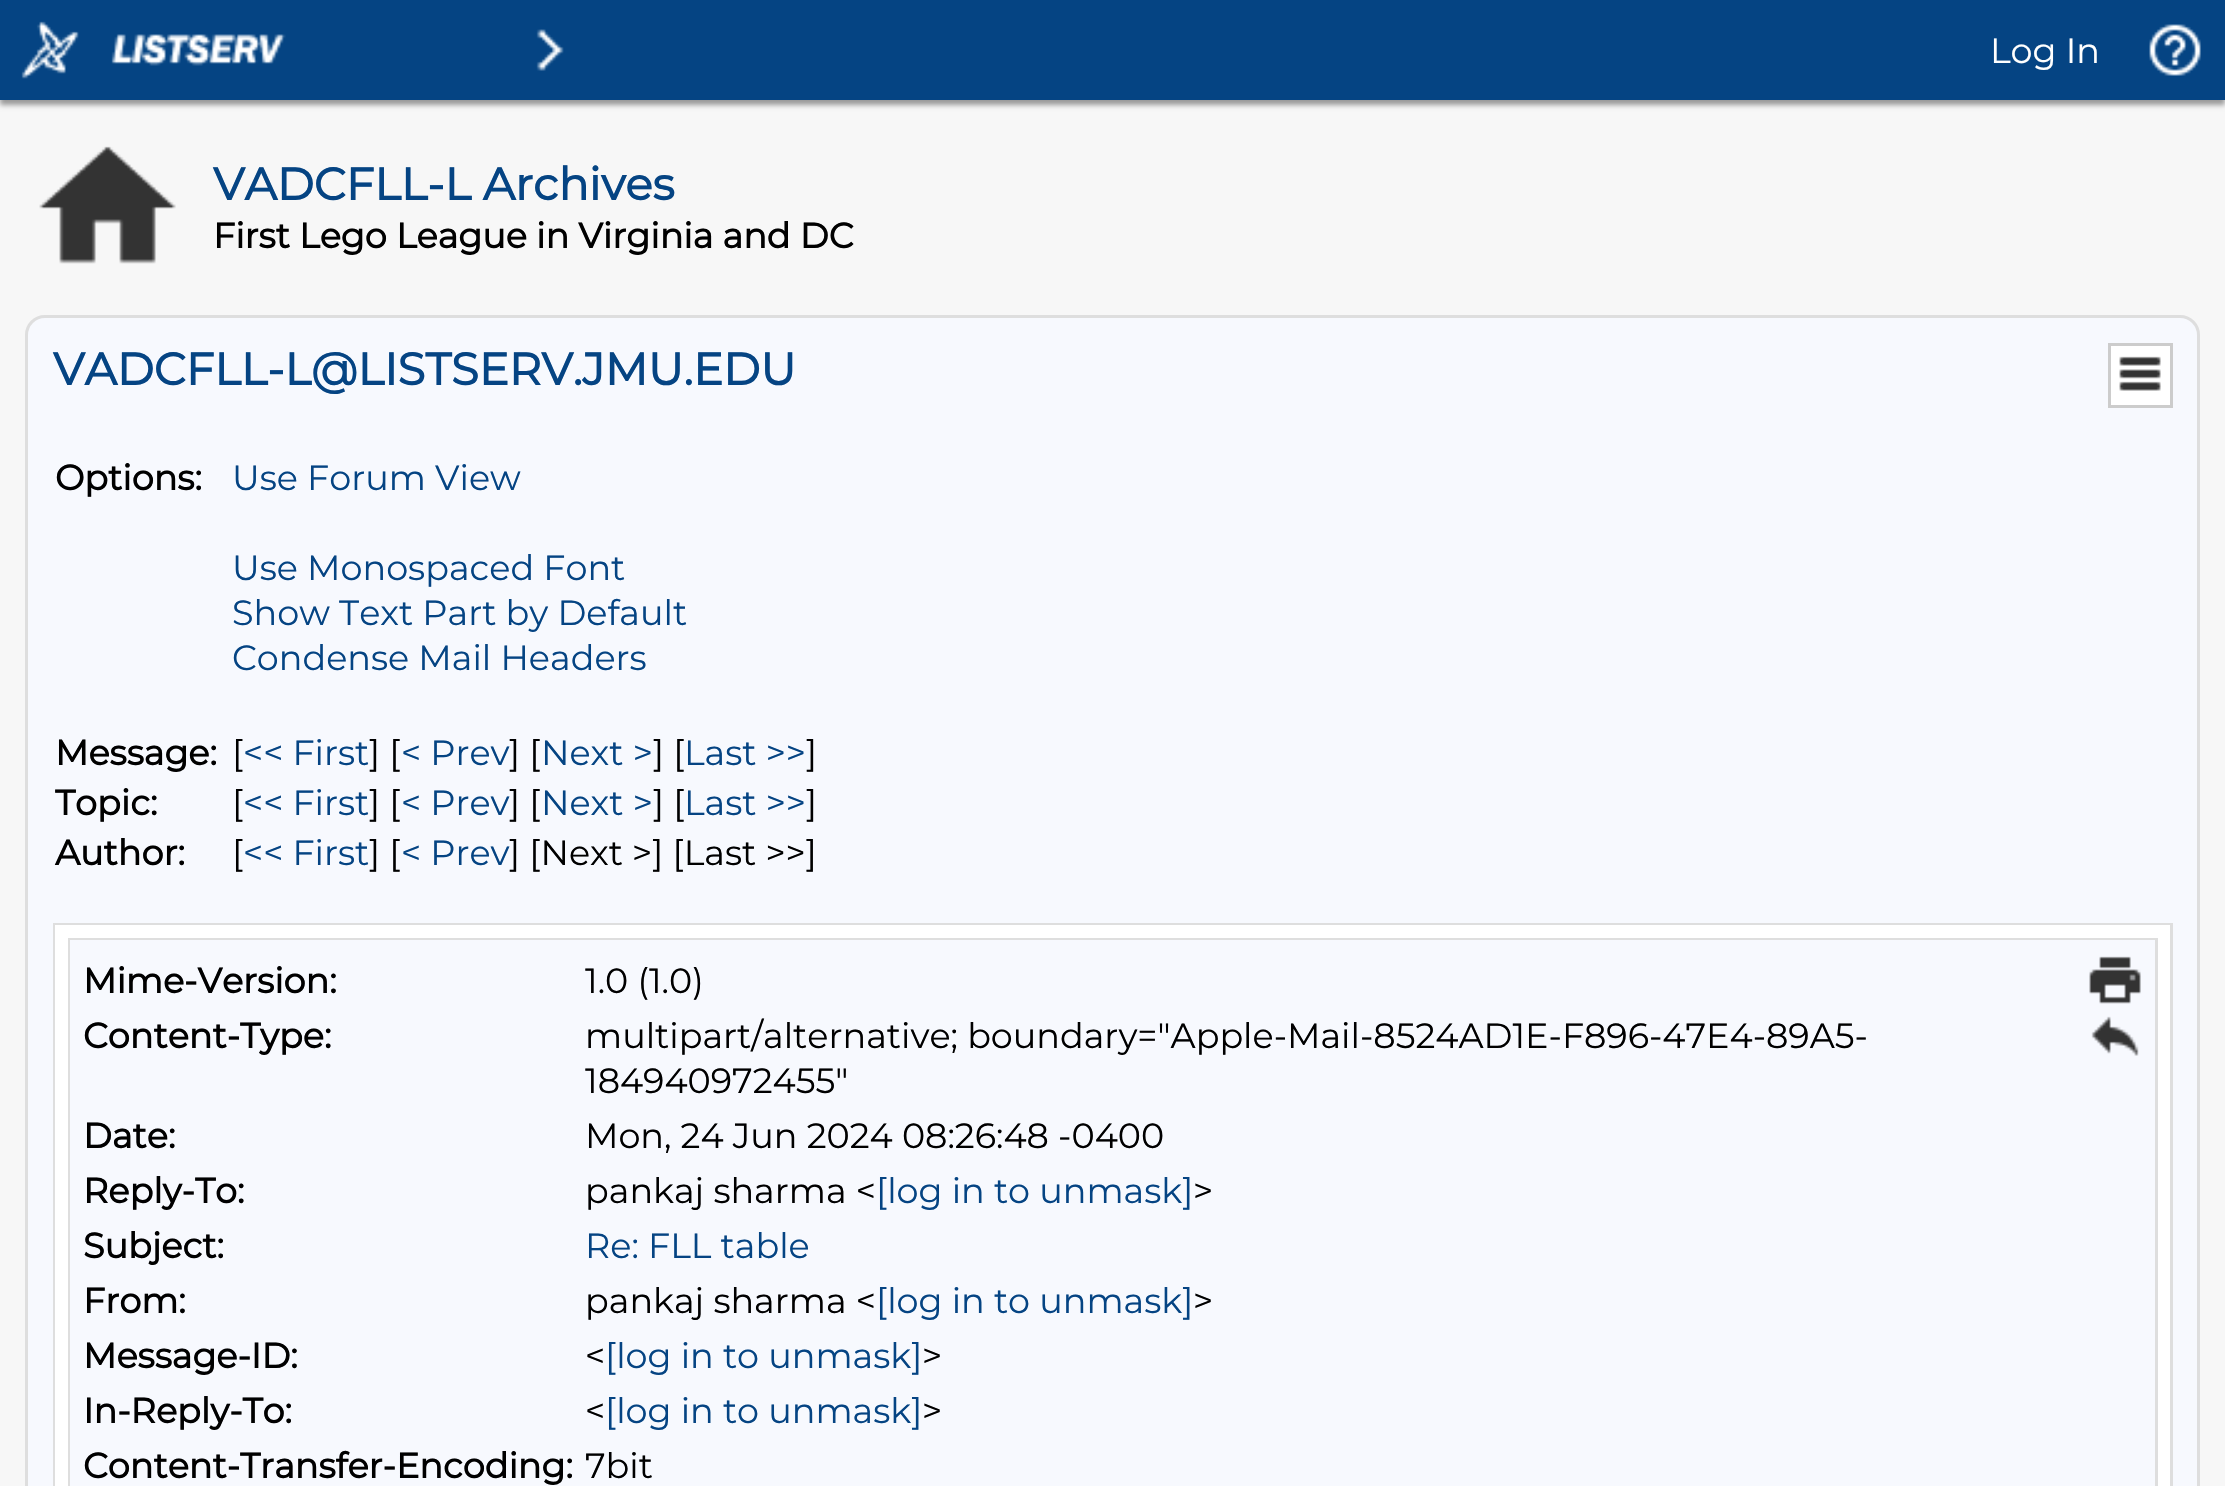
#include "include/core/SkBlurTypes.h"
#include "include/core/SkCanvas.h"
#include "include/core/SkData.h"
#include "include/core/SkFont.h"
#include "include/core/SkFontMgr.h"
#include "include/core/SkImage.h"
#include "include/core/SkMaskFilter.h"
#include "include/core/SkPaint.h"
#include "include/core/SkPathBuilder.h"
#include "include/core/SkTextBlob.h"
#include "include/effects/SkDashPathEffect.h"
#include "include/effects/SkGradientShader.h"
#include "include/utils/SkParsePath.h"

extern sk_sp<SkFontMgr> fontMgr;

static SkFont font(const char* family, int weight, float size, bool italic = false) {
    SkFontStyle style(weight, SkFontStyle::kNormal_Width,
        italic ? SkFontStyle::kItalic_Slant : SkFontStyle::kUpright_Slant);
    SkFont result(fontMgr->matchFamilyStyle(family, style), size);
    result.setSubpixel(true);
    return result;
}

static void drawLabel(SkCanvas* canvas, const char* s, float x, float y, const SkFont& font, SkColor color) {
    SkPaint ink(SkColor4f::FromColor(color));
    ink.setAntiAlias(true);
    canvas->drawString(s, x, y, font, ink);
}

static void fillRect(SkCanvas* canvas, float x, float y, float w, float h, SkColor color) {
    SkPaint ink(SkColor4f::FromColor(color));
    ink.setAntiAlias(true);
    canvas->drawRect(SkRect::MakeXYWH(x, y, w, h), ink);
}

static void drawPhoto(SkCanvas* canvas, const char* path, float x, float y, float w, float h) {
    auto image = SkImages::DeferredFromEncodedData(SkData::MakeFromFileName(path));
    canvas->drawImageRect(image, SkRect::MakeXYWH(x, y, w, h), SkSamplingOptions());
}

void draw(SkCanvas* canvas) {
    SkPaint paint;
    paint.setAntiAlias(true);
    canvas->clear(0xFFF7F7F7);
    paint.setColor(0xFF999999);
    paint.setMaskFilter(SkMaskFilter::MakeBlur(kNormal_SkBlurStyle, 2.5f));
    canvas->drawRect(SkRect::MakeXYWH(0, 5, 2225, 100), paint);
    paint.setMaskFilter(nullptr);
    fillRect(canvas, 0, 0, 2225, 100, 0xFF054483);
    drawPhoto(canvas, "assets/img1.png", 21, 21, 58, 58);
    drawPhoto(canvas, "assets/img2.png", 111, 34, 175, 32);
    drawPhoto(canvas, "assets/img3.png", 536, 29, 28, 42);
    SkFont font1 = font("Montserrat", 100, 35);
    drawLabel(canvas, "Log In", 1990, 63, font1, 0xFFFFFFFF);
    drawPhoto(canvas, "assets/img4.png", 2149, 24, 52, 52);
    drawPhoto(canvas, "assets/img5.png", 39, 146, 137, 118);
    SkFont font2 = font("Montserrat", 700, 45);
    drawLabel(canvas, "VADCFLL-L Archives", 213, 200, font2, 0xFF054483);
    SkFont font3 = font("Montserrat", 700, 35);
    drawLabel(canvas, "First Lego League in Virginia and DC", 213, 248, font3, 0xFF000000);
    paint.setColor(0xFFF7F9FE);
    canvas->drawRoundRect(SkRect::MakeXYWH(26.5f, 316.5f, 2172, 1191), 18.5f, 18.5f, paint);
    paint.setStroke(true);
    paint.setStrokeWidth(3);
    paint.setColor(0xFFDEDEDE);
    canvas->drawRoundRect(SkRect::MakeXYWH(26.5f, 316.5f, 2172, 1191), 18.5f, 18.5f, paint);
    drawLabel(canvas, "VADCFLL-L@LISTSERV.JMU.EDU", 53, 385, font2, 0xFF054483);
    paint.setStroke(false);
    paint.setColor(0xFFFFFFFF);
    canvas->drawRect(SkRect::MakeXYWH(2109.5f, 344.5f, 62, 62), paint);
    paint.setStroke(true);
    paint.setColor(0xFFCCCCCC);
    canvas->drawRect(SkRect::MakeXYWH(2109.5f, 344.5f, 62, 62), paint);
    drawPhoto(canvas, "assets/img6.png", 2119, 356, 42, 35);
    drawLabel(canvas, "Options:", 55, 490, font3, 0xFF000000);
    drawLabel(canvas, "Use Forum View", 232, 490, font1, 0xFF054483);
    drawLabel(canvas, "Use Monospaced Font", 232, 580, font1, 0xFF054483);
    drawLabel(canvas, "Show Text Part by Default", 232, 625, font1, 0xFF054483);
    drawLabel(canvas, "Condense Mail Headers", 232, 670, font1, 0xFF054483);
    drawLabel(canvas, "Message:", 55, 765, font3, 0xFF000000);
    drawLabel(canvas, "[", 232, 765, font1, 0xFF000000);
    drawLabel(canvas, "<< First", 243, 765, font1, 0xFF054483);
    drawLabel(canvas, "] [", 369, 765, font1, 0xFF000000);
    drawLabel(canvas, "< Prev", 401, 765, font1, 0xFF054483);
    drawLabel(canvas, "] [", 509, 765, font1, 0xFF000000);
    drawLabel(canvas, "Next >", 541, 765, font1, 0xFF054483);
    drawLabel(canvas, "] [", 653, 765, font1, 0xFF000000);
    drawLabel(canvas, "Last >>", 684, 765, font1, 0xFF054483);
    drawLabel(canvas, "]", 806, 765, font1, 0xFF000000);
    drawLabel(canvas, "Topic:", 55, 815, font3, 0xFF000000);
    drawLabel(canvas, "[", 232, 815, font1, 0xFF000000);
    drawLabel(canvas, "<< First", 243, 815, font1, 0xFF054483);
    drawLabel(canvas, "] [", 369, 815, font1, 0xFF000000);
    drawLabel(canvas, "< Prev", 401, 815, font1, 0xFF054483);
    drawLabel(canvas, "] [", 509, 815, font1, 0xFF000000);
    drawLabel(canvas, "Next >", 541, 815, font1, 0xFF054483);
    drawLabel(canvas, "] [", 653, 815, font1, 0xFF000000);
    drawLabel(canvas, "Last >>", 684, 815, font1, 0xFF054483);
    drawLabel(canvas, "]", 806, 815, font1, 0xFF000000);
    drawLabel(canvas, "Author:", 55, 865, font3, 0xFF000000);
    drawLabel(canvas, "[", 232, 865, font1, 0xFF000000);
    drawLabel(canvas, "<< First", 243, 865, font1, 0xFF054483);
    drawLabel(canvas, "] [", 369, 865, font1, 0xFF000000);
    drawLabel(canvas, "< Prev", 401, 865, font1, 0xFF054483);
    drawLabel(canvas, "] [Next >] [Last >>]", 509, 865, font1, 0xFF000000);
    paint.setColor(0xFFDEDEDE);
    canvas->drawRect(SkRect::MakeXYWH(54.5f, 924.5f, 2117, 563), paint);
    fillRect(canvas, 55, 925, 2115, 561, 0xFFFFFFFF);
    canvas->drawRect(SkRect::MakeXYWH(69.5f, 939.5f, 2087, 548), paint);
    fillRect(canvas, 70, 940, 2085, 546, 0xFFF7F9FE);
    drawLabel(canvas, "Mime-Version:", 83, 993, font3, 0xFF000000);
    drawLabel(canvas, "1.0 (1.0)", 585, 993, font1, 0xFF000000);
    drawLabel(canvas, "Content-Type:", 83, 1048, font3, 0xFF000000);
    drawLabel(canvas, "multipart/alternative; boundary=\"Apple-Mail-8524AD1E-F896-47E4-89A5-", 585, 1048, font1, 0xFF000000);
    drawLabel(canvas, "184940972455\"", 585, 1093, font1, 0xFF000000);
    drawLabel(canvas, "Date:", 83, 1148, font3, 0xFF000000);
    drawLabel(canvas, "Mon, 24 Jun 2024 08:26:48 -0400", 585, 1148, font1, 0xFF000000);
    drawLabel(canvas, "Reply-To:", 83, 1203, font3, 0xFF000000);
    drawLabel(canvas, "pankaj sharma <", 585, 1203, font1, 0xFF000000);
    drawLabel(canvas, "[log in to unmask]", 876, 1203, font1, 0xFF054483);
    drawLabel(canvas, ">", 1193, 1203, font1, 0xFF000000);
    drawLabel(canvas, "Subject:", 83, 1258, font3, 0xFF000000);
    drawLabel(canvas, "Re: FLL table", 585, 1258, font1, 0xFF054483);
    drawLabel(canvas, "From:", 83, 1313, font3, 0xFF000000);
    drawLabel(canvas, "pankaj sharma <", 585, 1313, font1, 0xFF000000);
    drawLabel(canvas, "[log in to unmask]", 876, 1313, font1, 0xFF054483);
    drawLabel(canvas, ">", 1193, 1313, font1, 0xFF000000);
    drawLabel(canvas, "Message-ID:", 83, 1368, font3, 0xFF000000);
    drawLabel(canvas, "<", 585, 1368, font1, 0xFF000000);
    drawLabel(canvas, "[log in to unmask]", 605, 1368, font1, 0xFF054483);
    drawLabel(canvas, ">", 922, 1368, font1, 0xFF000000);
    drawLabel(canvas, "In-Reply-To:", 83, 1423, font3, 0xFF000000);
    drawLabel(canvas, "<", 585, 1423, font1, 0xFF000000);
    drawLabel(canvas, "[log in to unmask]", 605, 1423, font1, 0xFF054483);
    drawLabel(canvas, ">", 922, 1423, font1, 0xFF000000);
    drawLabel(canvas, "Content-Transfer-Encoding:", 83, 1478, font3, 0xFF000000);
    drawLabel(canvas, "7bit", 585, 1478, font1, 0xFF000000);
    drawPhoto(canvas, "assets/img7.png", 2089, 956, 52, 48);
    drawPhoto(canvas, "assets/img8.png", 2091, 1016, 48, 40);
}
